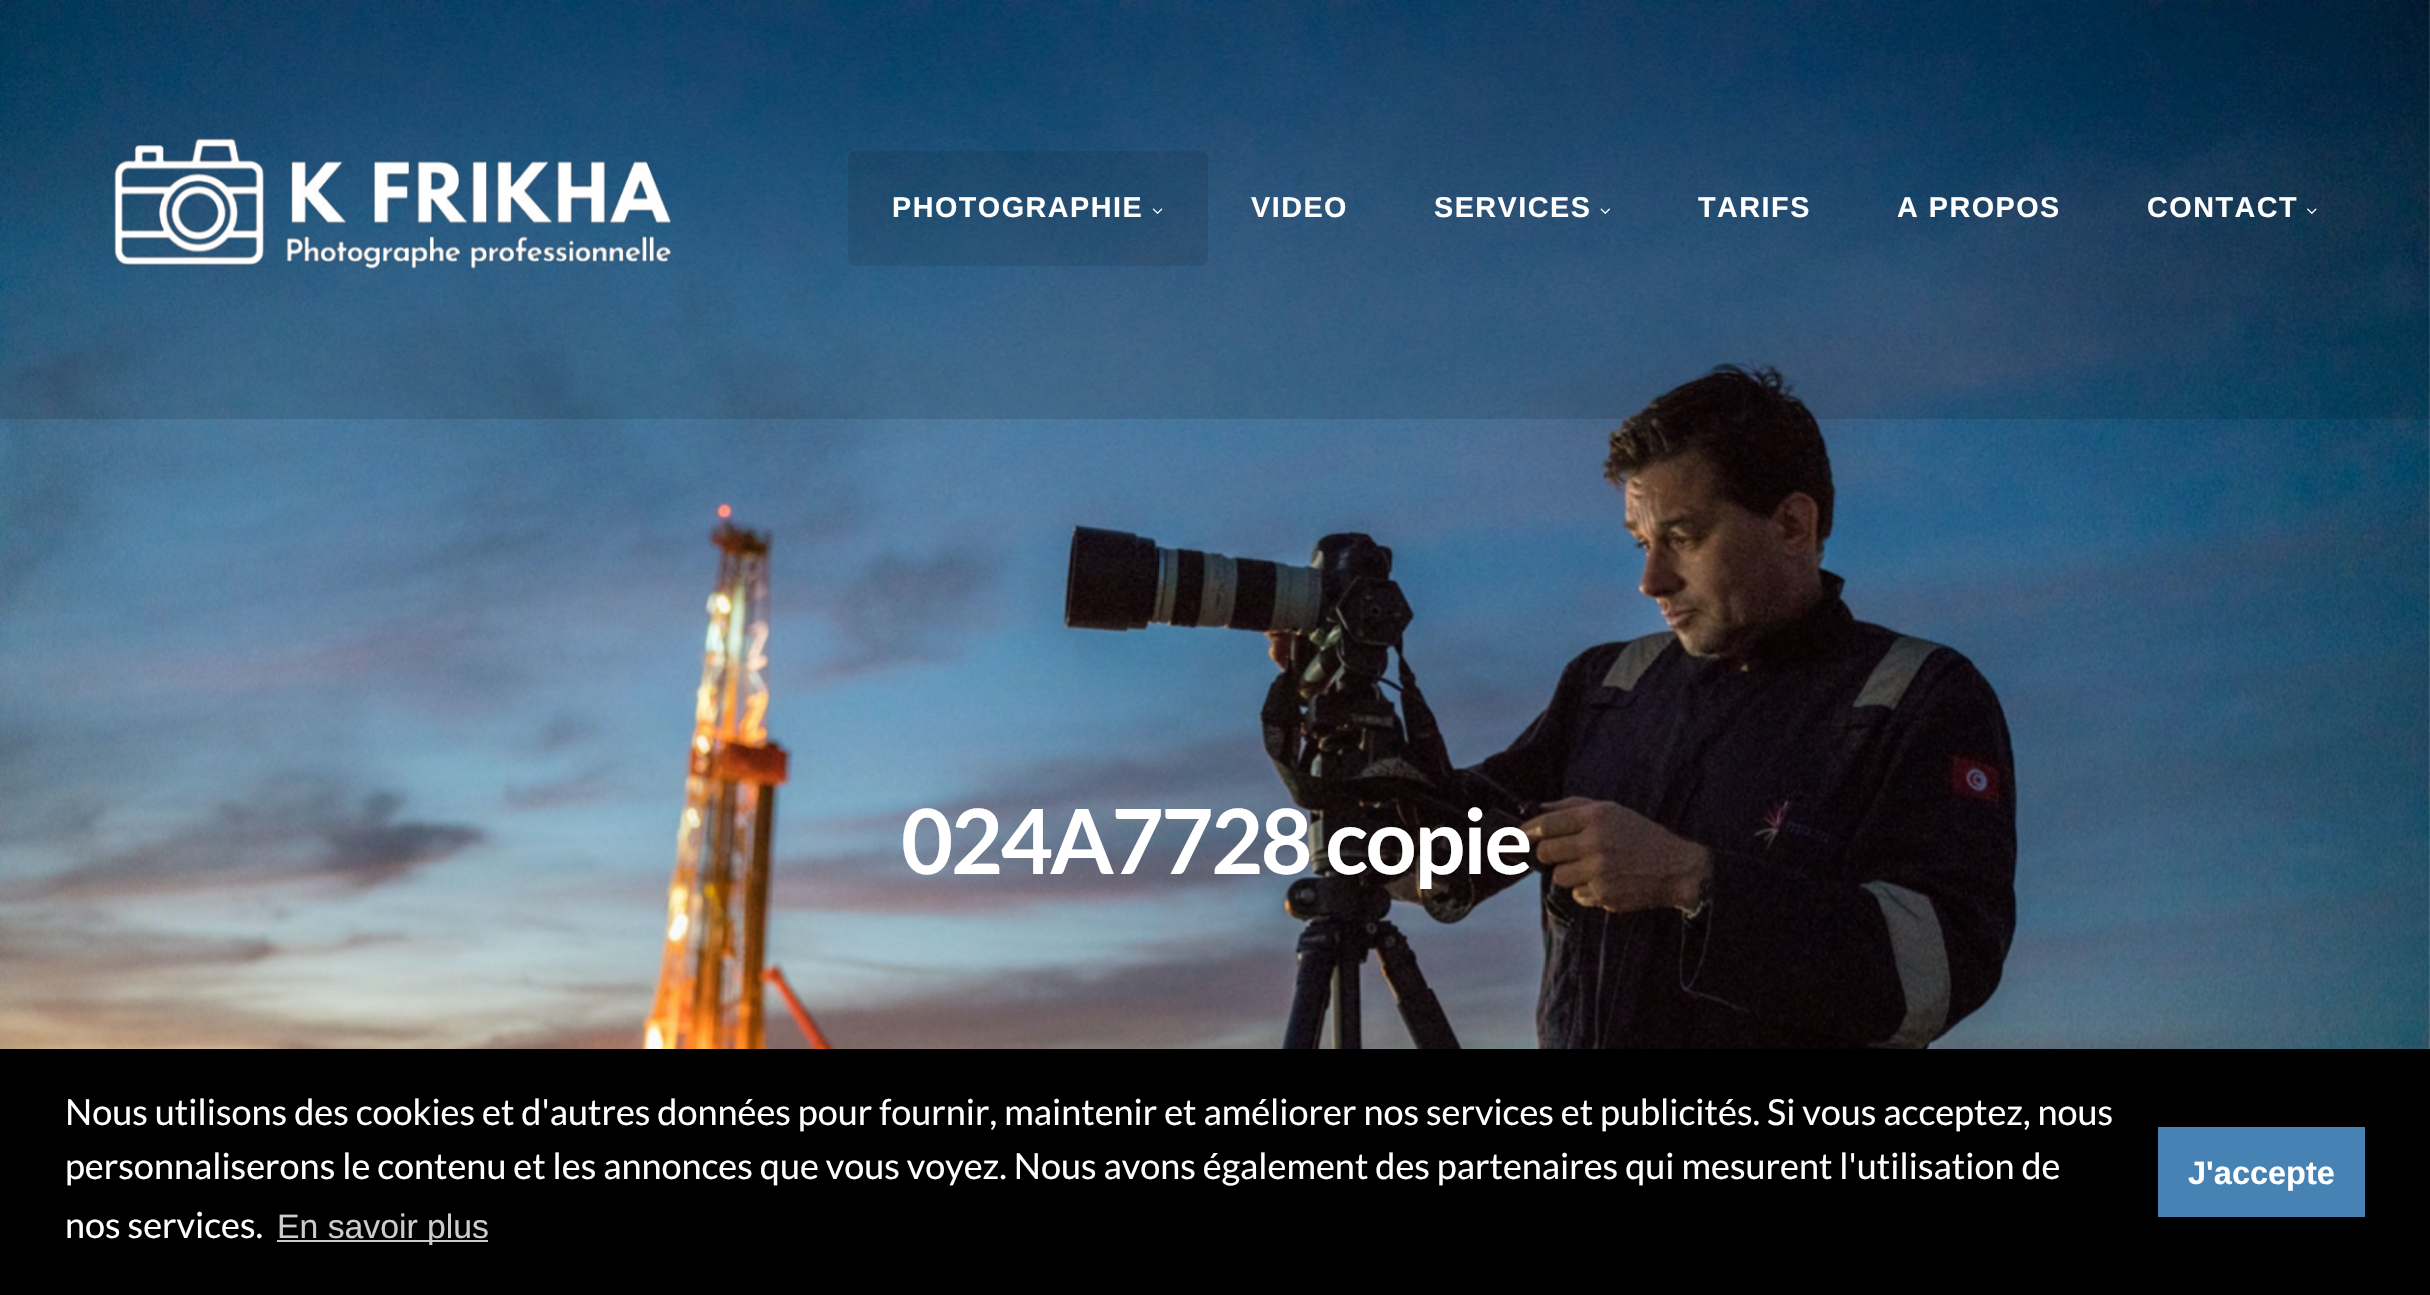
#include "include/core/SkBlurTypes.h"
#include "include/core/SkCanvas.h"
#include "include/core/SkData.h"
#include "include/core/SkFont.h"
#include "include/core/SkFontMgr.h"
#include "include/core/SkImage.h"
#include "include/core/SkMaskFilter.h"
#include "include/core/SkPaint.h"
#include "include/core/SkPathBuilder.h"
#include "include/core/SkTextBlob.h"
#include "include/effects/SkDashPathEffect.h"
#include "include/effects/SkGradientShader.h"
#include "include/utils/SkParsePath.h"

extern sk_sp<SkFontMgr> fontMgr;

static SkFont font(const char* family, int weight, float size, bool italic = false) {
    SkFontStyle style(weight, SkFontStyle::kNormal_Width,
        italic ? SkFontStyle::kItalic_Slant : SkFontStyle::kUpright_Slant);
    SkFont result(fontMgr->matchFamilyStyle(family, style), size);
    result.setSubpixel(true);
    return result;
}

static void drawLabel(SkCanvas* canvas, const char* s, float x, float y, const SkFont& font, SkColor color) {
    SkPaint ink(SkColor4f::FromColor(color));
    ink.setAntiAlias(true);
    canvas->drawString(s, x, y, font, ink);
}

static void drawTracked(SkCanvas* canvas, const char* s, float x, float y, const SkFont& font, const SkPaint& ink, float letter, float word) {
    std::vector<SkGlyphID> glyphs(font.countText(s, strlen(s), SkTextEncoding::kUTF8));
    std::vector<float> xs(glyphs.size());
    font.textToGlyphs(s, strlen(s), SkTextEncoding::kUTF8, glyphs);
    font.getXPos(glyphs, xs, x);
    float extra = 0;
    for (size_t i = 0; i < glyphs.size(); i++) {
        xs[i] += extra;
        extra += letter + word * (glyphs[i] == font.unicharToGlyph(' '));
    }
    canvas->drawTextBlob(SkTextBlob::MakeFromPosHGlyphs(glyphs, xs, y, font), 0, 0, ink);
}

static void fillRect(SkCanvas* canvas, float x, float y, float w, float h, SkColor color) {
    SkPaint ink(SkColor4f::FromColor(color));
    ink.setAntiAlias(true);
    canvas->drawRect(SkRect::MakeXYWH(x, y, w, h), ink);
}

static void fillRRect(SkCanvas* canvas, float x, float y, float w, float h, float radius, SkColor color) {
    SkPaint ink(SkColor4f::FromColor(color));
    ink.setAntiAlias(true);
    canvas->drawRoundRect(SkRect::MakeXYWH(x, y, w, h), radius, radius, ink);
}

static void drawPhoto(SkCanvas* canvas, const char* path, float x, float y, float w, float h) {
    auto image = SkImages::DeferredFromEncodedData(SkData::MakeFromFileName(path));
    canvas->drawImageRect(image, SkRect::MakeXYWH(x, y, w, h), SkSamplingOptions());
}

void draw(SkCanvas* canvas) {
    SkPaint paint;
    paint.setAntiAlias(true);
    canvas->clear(0xFFFFFFFF);
    drawPhoto(canvas, "assets/img5.png", 0, 0, 2430, 1049);
    fillRect(canvas, 0, 0, 2430, 419, 0x1F000000);
    drawPhoto(canvas, "assets/img1.png", 114, 138, 558, 131);
    fillRRect(canvas, 848, 151, 360, 115, 7, 0x1A000000);
    SkFont font1 = font("Liberation Sans", 700, 28.75f);
    paint.setColor(0xFFFFFFFF);
    drawTracked(canvas, "PHOTOGRAPHIE", 892, 217, font1, paint, 1.5f, 0);
    drawPhoto(canvas, "assets/img2.png", 1152, 208, 11, 6);
    drawTracked(canvas, "VIDEO", 1251, 217, font1, paint, 1.5f, 0);
    drawTracked(canvas, "SERVICES", 1434, 217, font1, paint, 1.5f, 0);
    drawPhoto(canvas, "assets/img3.png", 1600, 208, 11, 6);
    drawTracked(canvas, "TARIFS", 1698, 217, font1, paint, 1.5f, 0);
    drawTracked(canvas, "A PROPOS", 1897, 217, font1, paint, 1.5f, 0);
    drawTracked(canvas, "CONTACT", 2147, 217, font1, paint, 1.5f, 0);
    drawPhoto(canvas, "assets/img4.png", 2307, 208, 10, 6);
    SkFont font2 = font("Lato", 700, 90);
    drawTracked(canvas, "024A7728 copie", 901, 874, font2, paint, -2.5f, 0);
    fillRect(canvas, 0, 1049, 2430, 246, 0xFF000000);
    SkFont font3 = font("Lato", 400, 36);
    drawLabel(canvas, "Nous utilisons des cookies et d'autres données pour fournir, maintenir et améliorer nos services et publicités. Si vous acceptez, nous", 65, 1125, font3, 0xFFFFFFFF);
    drawLabel(canvas, "personnaliserons le contenu et les annonces que vous voyez. Nous avons également des partenaires qui mesurent l'utilisation de", 65, 1179, font3, 0xFFFFFFFF);
    drawLabel(canvas, "nos services.", 65, 1238, font3, 0xFFFFFFFF);
    fillRect(canvas, 277, 1240, 211, 2, 0xFFCCCCCC);
    SkFont font4 = font("Liberation Sans", 400, 33.75f);
    drawLabel(canvas, "En savoir plus", 277, 1238, font4, 0xFFCCCCCC);
    fillRect(canvas, 2158, 1127, 207, 90, 0xFF4682B4);
    SkFont font5 = font("Liberation Sans", 700, 32.5f);
    drawLabel(canvas, "J'accepte", 2188, 1184, font5, 0xFFFFFFFF);
}
